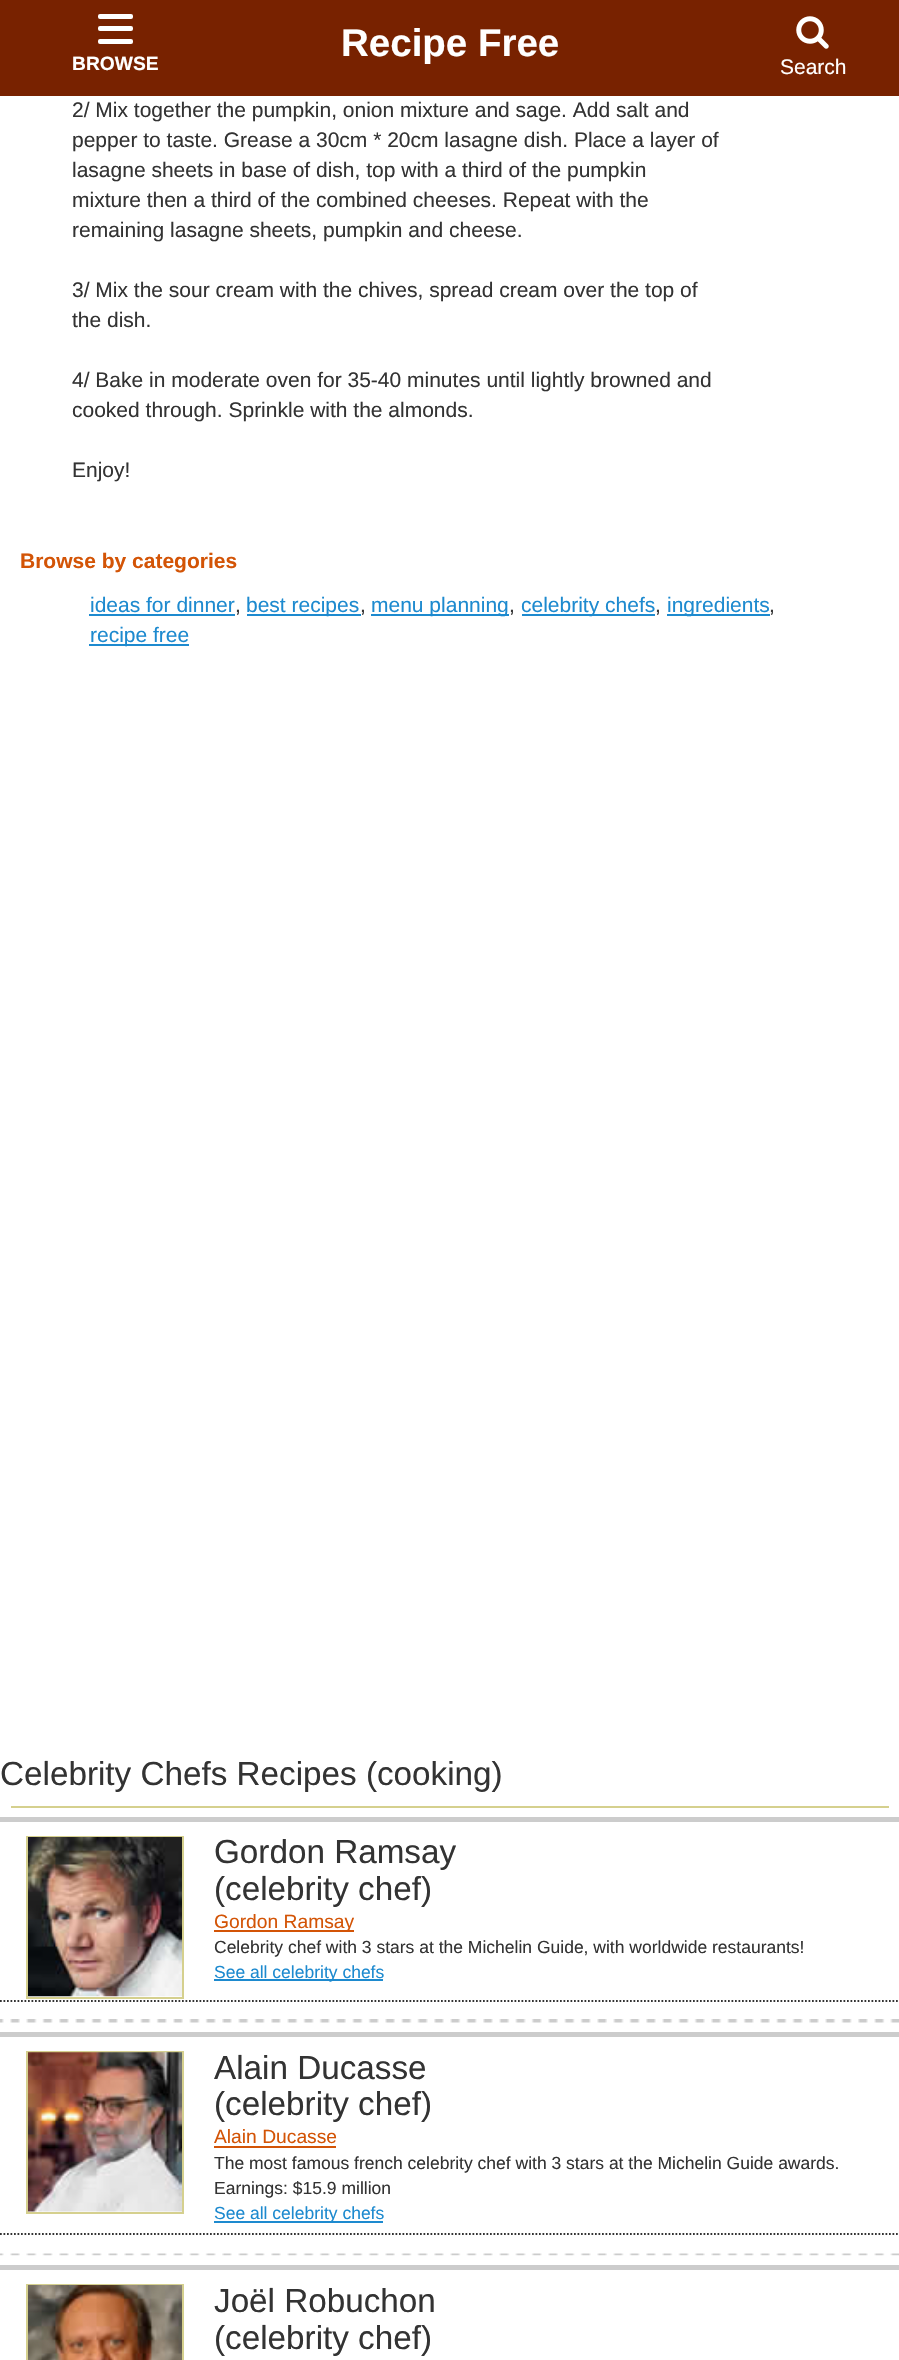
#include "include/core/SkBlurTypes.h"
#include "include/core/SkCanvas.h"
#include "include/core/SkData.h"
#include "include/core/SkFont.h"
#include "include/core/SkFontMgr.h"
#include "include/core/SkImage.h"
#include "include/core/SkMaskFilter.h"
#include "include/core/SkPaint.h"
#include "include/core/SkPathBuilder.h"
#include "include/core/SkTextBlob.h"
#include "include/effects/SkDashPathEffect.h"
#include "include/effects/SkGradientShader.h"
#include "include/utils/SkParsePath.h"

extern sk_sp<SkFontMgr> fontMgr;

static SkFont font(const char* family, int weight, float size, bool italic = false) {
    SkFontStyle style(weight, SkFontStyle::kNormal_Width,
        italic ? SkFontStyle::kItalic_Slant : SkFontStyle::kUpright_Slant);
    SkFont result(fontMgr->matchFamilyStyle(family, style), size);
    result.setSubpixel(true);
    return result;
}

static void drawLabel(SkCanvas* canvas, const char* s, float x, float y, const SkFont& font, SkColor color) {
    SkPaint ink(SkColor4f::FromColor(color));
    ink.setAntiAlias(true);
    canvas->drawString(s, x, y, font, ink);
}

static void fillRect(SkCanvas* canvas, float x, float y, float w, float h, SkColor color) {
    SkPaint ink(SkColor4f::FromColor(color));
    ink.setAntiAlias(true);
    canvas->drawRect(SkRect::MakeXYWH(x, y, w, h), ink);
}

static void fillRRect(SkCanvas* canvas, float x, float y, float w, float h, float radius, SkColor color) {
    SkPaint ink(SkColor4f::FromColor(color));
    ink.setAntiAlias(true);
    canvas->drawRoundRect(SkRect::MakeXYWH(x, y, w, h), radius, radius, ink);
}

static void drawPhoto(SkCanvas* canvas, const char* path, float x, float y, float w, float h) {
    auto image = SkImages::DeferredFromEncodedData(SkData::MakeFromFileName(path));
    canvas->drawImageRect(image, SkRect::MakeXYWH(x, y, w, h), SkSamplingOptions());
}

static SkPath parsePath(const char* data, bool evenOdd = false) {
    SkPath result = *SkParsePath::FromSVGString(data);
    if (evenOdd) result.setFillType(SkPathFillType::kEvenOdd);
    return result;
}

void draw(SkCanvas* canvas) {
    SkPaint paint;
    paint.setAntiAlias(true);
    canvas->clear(0xFFFFFFFF);
    fillRect(canvas, 0, 0, 899, 96, 0xFF782200);
    fillRRect(canvas, 98, 14, 35, 5, 2, 0xFFFFFFFF);
    fillRRect(canvas, 98, 26, 35, 5, 2, 0xFFFFFFFF);
    fillRRect(canvas, 98, 39, 35, 5, 2, 0xFFFFFFFF);
    SkFont font1 = font("Liberation Sans", 700, 19.25f);
    drawLabel(canvas, "BROWSE", 72, 70, font1, 0xFFFFFFFF);
    SkFont font2 = font("Liberation Sans", 700, 38.5f);
    drawLabel(canvas, "Recipe Free", 341, 56, font2, 0xFFFFFFFF);
    drawPhoto(canvas, "assets/img1.png", 796, 16, 33, 33);
    SkFont font3 = font("Liberation Sans", 400, 21);
    drawLabel(canvas, "Search", 780, 74, font3, 0xFFFFFFFF);
    drawLabel(canvas, "2/ Mix together the pumpkin, onion mixture and sage. Add salt and", 72, 117, font3, 0xFF333333);
    drawLabel(canvas, "pepper to taste. Grease a 30cm * 20cm lasagne dish. Place a layer of", 72, 147, font3, 0xFF333333);
    drawLabel(canvas, "lasagne sheets in base of dish, top with a third of the pumpkin", 72, 177, font3, 0xFF333333);
    drawLabel(canvas, "mixture then a third of the combined cheeses. Repeat with the", 72, 207, font3, 0xFF333333);
    drawLabel(canvas, "remaining lasagne sheets, pumpkin and cheese.", 72, 237, font3, 0xFF333333);
    drawLabel(canvas, "3/ Mix the sour cream with the chives, spread cream over the top of", 72, 297, font3, 0xFF333333);
    drawLabel(canvas, "the dish.", 72, 327, font3, 0xFF333333);
    drawLabel(canvas, "4/ Bake in moderate oven for 35-40 minutes until lightly browned and", 72, 387, font3, 0xFF333333);
    drawLabel(canvas, "cooked through. Sprinkle with the almonds.", 72, 417, font3, 0xFF333333);
    drawLabel(canvas, "Enjoy!", 72, 477, font3, 0xFF333333);
    SkFont font4 = font("Liberation Sans", 700, 21);
    drawLabel(canvas, "Browse by categories", 20, 568, font4, 0xFFD35406);
    drawLabel(canvas, "ideas for dinner", 90, 612, font3, 0xFF1D8ACF);
    fillRect(canvas, 89, 614, 146, 2, 0xFF1D8ACF);
    drawLabel(canvas, ",", 235, 612, font3, 0xFF333333);
    fillRect(canvas, 247, 614, 114, 2, 0xFF1D8ACF);
    drawLabel(canvas, "best recipes", 246, 612, font3, 0xFF1D8ACF);
    drawLabel(canvas, ",", 360, 612, font3, 0xFF333333);
    fillRect(canvas, 371, 614, 138, 2, 0xFF1D8ACF);
    drawLabel(canvas, "menu planning", 371, 612, font3, 0xFF1D8ACF);
    drawLabel(canvas, ",", 509, 612, font3, 0xFF333333);
    fillRect(canvas, 522, 614, 133, 2, 0xFF1D8ACF);
    drawLabel(canvas, "celebrity chefs", 521, 612, font3, 0xFF1D8ACF);
    drawLabel(canvas, ",", 655, 612, font3, 0xFF333333);
    fillRect(canvas, 667, 614, 103, 2, 0xFF1D8ACF);
    drawLabel(canvas, "ingredients", 667, 612, font3, 0xFF1D8ACF);
    drawLabel(canvas, ",", 769, 612, font3, 0xFF333333);
    fillRect(canvas, 89, 644, 100, 2, 0xFF1D8ACF);
    drawLabel(canvas, "recipe free", 90, 642, font3, 0xFF1D8ACF);
    SkFont font5 = font("Liberation Sans", 400, 33.25f);
    drawLabel(canvas, "Celebrity Chefs Recipes (cooking)", 0, 1785, font5, 0xFF333333);
    fillRect(canvas, 11, 1806, 878, 2, 0xFFD5D08E);
    fillRect(canvas, 0, 1817, 899, 5, 0xFFCCCCCC);
    paint.setStroke(true);
    paint.setStrokeWidth(1.8f);
    paint.setColor(0xFF333333);
    paint.setPathEffect(SkDashPathEffect::Make({{1.75f, 1.75f}}, 0));
    canvas->drawPath(parsePath("M0 2001H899.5"), paint);
    paint.setPathEffect(nullptr);
    paint.setStrokeWidth(2);
    paint.setColor(0xFFD5D08E);
    canvas->drawRect(SkRect::MakeXYWH(27, 1837, 156, 161), paint);
    drawPhoto(canvas, "assets/img2.png", 28, 1837, 154, 160);
    drawLabel(canvas, "Gordon Ramsay", 214, 1863, font5, 0xFF333333);
    drawLabel(canvas, "(celebrity chef)", 214, 1900, font5, 0xFF333333);
    fillRect(canvas, 214, 1930, 140, 2, 0xFFD35406);
    SkFont font6 = font("Liberation Sans", 400, 19.25f);
    drawLabel(canvas, "Gordon Ramsay", 214, 1928, font6, 0xFFD35406);
    SkFont font7 = font("Liberation Sans", 400, 17.5f);
    drawLabel(canvas, "Celebrity chef with 3 stars at the Michelin Guide, with worldwide restaurants!", 214, 1953, font7, 0xFF333333);
    fillRect(canvas, 214, 1979, 169, 2, 0xFF1D8ACF);
    drawLabel(canvas, "See all celebrity chefs", 214, 1978, font7, 0xFF1D8ACF);
    drawPhoto(canvas, "assets/img3.png", 0, 2019, 899, 4);
    fillRect(canvas, 0, 2032, 899, 5, 0xFFCCCCCC);
    paint.setStrokeWidth(1.8f);
    paint.setColor(0xFF333333);
    paint.setPathEffect(SkDashPathEffect::Make({{1.75f, 1.75f}}, 0));
    canvas->drawPath(parsePath("M0 2234H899.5"), paint);
    paint.setPathEffect(nullptr);
    paint.setStrokeWidth(2);
    paint.setColor(0xFFD5D08E);
    canvas->drawRect(SkRect::MakeXYWH(27, 2052, 156, 161), paint);
    drawPhoto(canvas, "assets/img4.png", 28, 2052, 154, 160);
    drawLabel(canvas, "Alain Ducasse", 214, 2079, font5, 0xFF333333);
    drawLabel(canvas, "(celebrity chef)", 214, 2115, font5, 0xFF333333);
    drawLabel(canvas, "Alain Ducasse", 214, 2143, font6, 0xFFD35406);
    fillRect(canvas, 214, 2146, 122, 2, 0xFFD35406);
    drawLabel(canvas, "The most famous french celebrity chef with 3 stars at the Michelin Guide awards.", 214, 2169, font7, 0xFF333333);
    drawLabel(canvas, "Earnings: $15.9 million", 214, 2194, font7, 0xFF333333);
    fillRect(canvas, 214, 2221, 169, 2, 0xFF1D8ACF);
    drawLabel(canvas, "See all celebrity chefs", 214, 2219, font7, 0xFF1D8ACF);
    drawPhoto(canvas, "assets/img5.png", 0, 2253, 899, 3);
    fillRect(canvas, 0, 2265, 899, 5, 0xFFCCCCCC);
    canvas->drawRect(SkRect::MakeXYWH(27, 2285, 156, 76), paint);
    drawPhoto(canvas, "assets/img6.png", 28, 2285, 154, 75);
    drawLabel(canvas, "Joël Robuchon", 214, 2312, font5, 0xFF333333);
    drawLabel(canvas, "(celebrity chef)", 214, 2349, font5, 0xFF333333);
}
